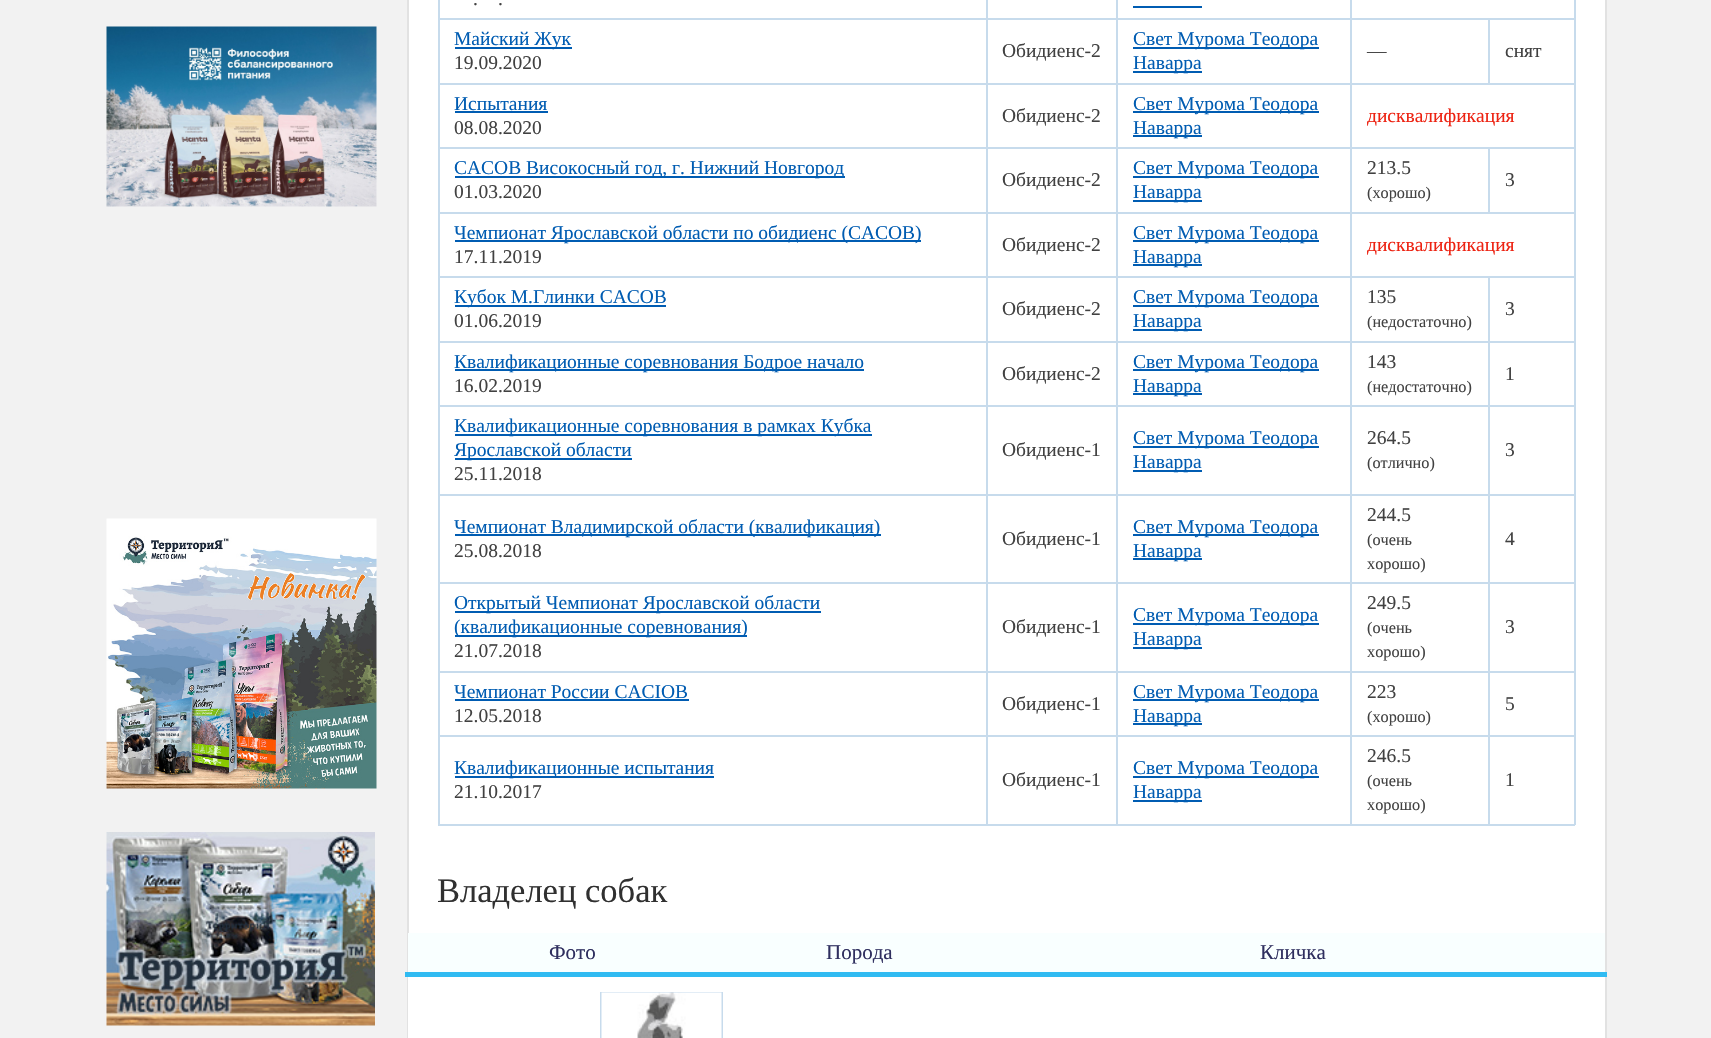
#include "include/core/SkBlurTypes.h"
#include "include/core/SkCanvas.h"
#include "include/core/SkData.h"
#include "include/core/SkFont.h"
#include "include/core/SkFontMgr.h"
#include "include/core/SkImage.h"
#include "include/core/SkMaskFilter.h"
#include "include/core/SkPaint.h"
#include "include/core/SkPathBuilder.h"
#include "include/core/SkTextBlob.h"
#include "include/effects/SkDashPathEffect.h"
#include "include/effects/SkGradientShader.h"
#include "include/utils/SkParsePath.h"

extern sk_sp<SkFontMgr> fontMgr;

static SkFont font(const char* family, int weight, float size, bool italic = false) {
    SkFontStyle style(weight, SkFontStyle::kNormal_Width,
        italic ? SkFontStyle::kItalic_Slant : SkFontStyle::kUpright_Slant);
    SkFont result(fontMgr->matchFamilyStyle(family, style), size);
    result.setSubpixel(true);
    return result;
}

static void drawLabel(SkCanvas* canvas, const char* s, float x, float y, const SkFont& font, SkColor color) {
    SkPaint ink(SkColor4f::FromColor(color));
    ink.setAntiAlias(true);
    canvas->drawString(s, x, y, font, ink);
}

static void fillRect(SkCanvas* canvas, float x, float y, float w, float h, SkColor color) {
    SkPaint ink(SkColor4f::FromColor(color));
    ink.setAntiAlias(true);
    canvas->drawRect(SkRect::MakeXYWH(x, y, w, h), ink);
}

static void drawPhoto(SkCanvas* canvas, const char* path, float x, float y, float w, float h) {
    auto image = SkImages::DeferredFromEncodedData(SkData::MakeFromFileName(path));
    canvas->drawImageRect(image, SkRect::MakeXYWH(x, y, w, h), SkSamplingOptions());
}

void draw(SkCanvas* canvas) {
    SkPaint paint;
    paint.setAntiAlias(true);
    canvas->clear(0xFFF2F2F2);
    drawPhoto(canvas, "assets/img1.png", 106, 26, 271, 181);
    drawPhoto(canvas, "assets/img2.png", 106, 518, 271, 271);
    drawPhoto(canvas, "assets/img3.png", 106, 832, 269, 194);
    fillRect(canvas, 409, 0, 1196, 933, 0xFFFFFFFF);
    paint.setStroke(true);
    paint.setStrokeWidth(2);
    paint.setColor(0xFFE2E2E2);
    canvas->drawRect(SkRect::MakeXYWH(408, -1, 1198, 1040), paint);
    fillRect(canvas, 1574, 0, 2, 825, 0xFFC7DBEC);
    fillRect(canvas, 438, 824, 1137, 2, 0xFFC7DBEC);
    fillRect(canvas, 438, 0, 2, 825, 0xFFC7DBEC);
    SkFont font1 = font("Liberation Serif", 400, 19.5f);
    drawLabel(canvas, ".", 473, 5, font1, 0xFF414141);
    drawLabel(canvas, ".", 498, 5, font1, 0xFF414141);
    fillRect(canvas, 1488, 18, 87, 2, 0xFFC7DBEC);
    fillRect(canvas, 1350, 83, 225, 2, 0xFFC7DBEC);
    fillRect(canvas, 1488, 18, 2, 66, 0xFFC7DBEC);
    fillRect(canvas, 1350, 18, 140, 2, 0xFFC7DBEC);
    fillRect(canvas, 1488, 147, 87, 2, 0xFFC7DBEC);
    fillRect(canvas, 1350, 212, 225, 2, 0xFFC7DBEC);
    fillRect(canvas, 1488, 147, 2, 66, 0xFFC7DBEC);
    fillRect(canvas, 1350, 147, 140, 2, 0xFFC7DBEC);
    fillRect(canvas, 1488, 276, 87, 2, 0xFFC7DBEC);
    fillRect(canvas, 1488, 341, 87, 2, 0xFFC7DBEC);
    fillRect(canvas, 1488, 405, 87, 2, 0xFFC7DBEC);
    fillRect(canvas, 1488, 494, 87, 2, 0xFFC7DBEC);
    fillRect(canvas, 1488, 582, 87, 2, 0xFFC7DBEC);
    fillRect(canvas, 1488, 671, 87, 2, 0xFFC7DBEC);
    fillRect(canvas, 1488, 735, 87, 2, 0xFFC7DBEC);
    fillRect(canvas, 1488, 735, 2, 90, 0xFFC7DBEC);
    fillRect(canvas, 1350, 735, 140, 2, 0xFFC7DBEC);
    fillRect(canvas, 1488, 671, 2, 66, 0xFFC7DBEC);
    fillRect(canvas, 1350, 671, 140, 2, 0xFFC7DBEC);
    fillRect(canvas, 1488, 582, 2, 90, 0xFFC7DBEC);
    fillRect(canvas, 1350, 582, 140, 2, 0xFFC7DBEC);
    fillRect(canvas, 1488, 494, 2, 90, 0xFFC7DBEC);
    fillRect(canvas, 1350, 494, 140, 2, 0xFFC7DBEC);
    fillRect(canvas, 1488, 405, 2, 90, 0xFFC7DBEC);
    fillRect(canvas, 1350, 405, 140, 2, 0xFFC7DBEC);
    fillRect(canvas, 1488, 341, 2, 66, 0xFFC7DBEC);
    fillRect(canvas, 1350, 341, 140, 2, 0xFFC7DBEC);
    fillRect(canvas, 1488, 276, 2, 66, 0xFFC7DBEC);
    fillRect(canvas, 1350, 276, 140, 2, 0xFFC7DBEC);
    fillRect(canvas, 1350, 735, 2, 90, 0xFFC7DBEC);
    fillRect(canvas, 1116, 735, 236, 2, 0xFFC7DBEC);
    fillRect(canvas, 1350, 671, 2, 66, 0xFFC7DBEC);
    fillRect(canvas, 1116, 671, 236, 2, 0xFFC7DBEC);
    fillRect(canvas, 1350, 582, 2, 90, 0xFFC7DBEC);
    fillRect(canvas, 1116, 582, 236, 2, 0xFFC7DBEC);
    fillRect(canvas, 1350, 494, 2, 90, 0xFFC7DBEC);
    fillRect(canvas, 1116, 494, 236, 2, 0xFFC7DBEC);
    fillRect(canvas, 1350, 405, 2, 90, 0xFFC7DBEC);
    fillRect(canvas, 1116, 405, 236, 2, 0xFFC7DBEC);
    fillRect(canvas, 1350, 341, 2, 66, 0xFFC7DBEC);
    fillRect(canvas, 1116, 341, 236, 2, 0xFFC7DBEC);
    fillRect(canvas, 1350, 276, 2, 66, 0xFFC7DBEC);
    fillRect(canvas, 1116, 276, 236, 2, 0xFFC7DBEC);
    fillRect(canvas, 1350, 212, 2, 66, 0xFFC7DBEC);
    fillRect(canvas, 1116, 212, 236, 2, 0xFFC7DBEC);
    fillRect(canvas, 1350, 147, 2, 66, 0xFFC7DBEC);
    fillRect(canvas, 1116, 147, 236, 2, 0xFFC7DBEC);
    fillRect(canvas, 1350, 83, 2, 66, 0xFFC7DBEC);
    fillRect(canvas, 1116, 83, 236, 2, 0xFFC7DBEC);
    fillRect(canvas, 1350, 18, 2, 66, 0xFFC7DBEC);
    fillRect(canvas, 1116, 18, 236, 2, 0xFFC7DBEC);
    fillRect(canvas, 1116, 735, 2, 90, 0xFFC7DBEC);
    fillRect(canvas, 986, 735, 132, 2, 0xFFC7DBEC);
    fillRect(canvas, 1116, 671, 2, 66, 0xFFC7DBEC);
    fillRect(canvas, 986, 671, 132, 2, 0xFFC7DBEC);
    fillRect(canvas, 1116, 582, 2, 90, 0xFFC7DBEC);
    fillRect(canvas, 986, 582, 132, 2, 0xFFC7DBEC);
    fillRect(canvas, 1116, 494, 2, 90, 0xFFC7DBEC);
    fillRect(canvas, 986, 494, 132, 2, 0xFFC7DBEC);
    fillRect(canvas, 1116, 405, 2, 90, 0xFFC7DBEC);
    fillRect(canvas, 986, 405, 132, 2, 0xFFC7DBEC);
    fillRect(canvas, 1116, 341, 2, 66, 0xFFC7DBEC);
    fillRect(canvas, 986, 341, 132, 2, 0xFFC7DBEC);
    fillRect(canvas, 1116, 276, 2, 66, 0xFFC7DBEC);
    fillRect(canvas, 986, 276, 132, 2, 0xFFC7DBEC);
    fillRect(canvas, 1116, 212, 2, 66, 0xFFC7DBEC);
    fillRect(canvas, 986, 212, 132, 2, 0xFFC7DBEC);
    fillRect(canvas, 1116, 147, 2, 66, 0xFFC7DBEC);
    fillRect(canvas, 986, 147, 132, 2, 0xFFC7DBEC);
    fillRect(canvas, 1116, 83, 2, 66, 0xFFC7DBEC);
    fillRect(canvas, 986, 83, 132, 2, 0xFFC7DBEC);
    fillRect(canvas, 1116, 18, 2, 66, 0xFFC7DBEC);
    fillRect(canvas, 986, 18, 132, 2, 0xFFC7DBEC);
    fillRect(canvas, 986, 735, 2, 90, 0xFFC7DBEC);
    fillRect(canvas, 438, 735, 549, 2, 0xFFC7DBEC);
    fillRect(canvas, 986, 671, 2, 66, 0xFFC7DBEC);
    fillRect(canvas, 438, 671, 549, 2, 0xFFC7DBEC);
    fillRect(canvas, 986, 582, 2, 90, 0xFFC7DBEC);
    fillRect(canvas, 438, 582, 549, 2, 0xFFC7DBEC);
    fillRect(canvas, 986, 494, 2, 90, 0xFFC7DBEC);
    fillRect(canvas, 438, 494, 549, 2, 0xFFC7DBEC);
    fillRect(canvas, 986, 405, 2, 90, 0xFFC7DBEC);
    fillRect(canvas, 438, 405, 549, 2, 0xFFC7DBEC);
    fillRect(canvas, 986, 341, 2, 66, 0xFFC7DBEC);
    fillRect(canvas, 438, 341, 549, 2, 0xFFC7DBEC);
    fillRect(canvas, 986, 276, 2, 66, 0xFFC7DBEC);
    fillRect(canvas, 438, 276, 549, 2, 0xFFC7DBEC);
    fillRect(canvas, 986, 212, 2, 66, 0xFFC7DBEC);
    fillRect(canvas, 438, 212, 549, 2, 0xFFC7DBEC);
    fillRect(canvas, 986, 147, 2, 66, 0xFFC7DBEC);
    fillRect(canvas, 438, 147, 549, 2, 0xFFC7DBEC);
    fillRect(canvas, 986, 83, 2, 66, 0xFFC7DBEC);
    fillRect(canvas, 438, 83, 549, 2, 0xFFC7DBEC);
    fillRect(canvas, 986, 18, 2, 66, 0xFFC7DBEC);
    fillRect(canvas, 438, 18, 549, 2, 0xFFC7DBEC);
    fillRect(canvas, 986, 0, 2, 20, 0xFFC7DBEC);
    fillRect(canvas, 1116, 0, 2, 20, 0xFFC7DBEC);
    fillRect(canvas, 1133, 6, 69, 2, 0xFF005CB2);
    fillRect(canvas, 1350, 0, 2, 20, 0xFFC7DBEC);
    fillRect(canvas, 455, 47, 117, 2, 0xFF005CB2);
    drawLabel(canvas, "Майский Жук", 454, 45, font1, 0xFF005CB2);
    drawLabel(canvas, "19.09.2020", 454, 69, font1, 0xFF414141);
    drawLabel(canvas, "Обидиенс-2", 1002, 57, font1, 0xFF414141);
    fillRect(canvas, 1133, 47, 186, 2, 0xFF005CB2);
    drawLabel(canvas, "Свет Мурома Теодора", 1133, 45, font1, 0xFF005CB2);
    fillRect(canvas, 1133, 71, 69, 2, 0xFF005CB2);
    drawLabel(canvas, "Наварра", 1133, 69, font1, 0xFF005CB2);
    drawLabel(canvas, "—", 1367, 57, font1, 0xFF414141);
    drawLabel(canvas, "снят", 1505, 57, font1, 0xFF414141);
    drawLabel(canvas, "Испытания", 454, 110, font1, 0xFF005CB2);
    fillRect(canvas, 455, 111, 93, 2, 0xFF005CB2);
    drawLabel(canvas, "08.08.2020", 454, 134, font1, 0xFF414141);
    drawLabel(canvas, "Обидиенс-2", 1002, 122, font1, 0xFF414141);
    fillRect(canvas, 1133, 111, 186, 2, 0xFF005CB2);
    drawLabel(canvas, "Свет Мурома Теодора", 1133, 110, font1, 0xFF005CB2);
    fillRect(canvas, 1133, 135, 69, 2, 0xFF005CB2);
    drawLabel(canvas, "Наварра", 1133, 134, font1, 0xFF005CB2);
    drawLabel(canvas, "дисквалификация", 1367, 122, font1, 0xFFED2211);
    fillRect(canvas, 455, 176, 390, 2, 0xFF005CB2);
    drawLabel(canvas, "CACOB Високосный год, г. Нижний Новгород", 454, 174, font1, 0xFF005CB2);
    drawLabel(canvas, "01.03.2020", 454, 198, font1, 0xFF414141);
    drawLabel(canvas, "Обидиенс-2", 1002, 186, font1, 0xFF414141);
    fillRect(canvas, 1133, 176, 186, 2, 0xFF005CB2);
    drawLabel(canvas, "Свет Мурома Теодора", 1133, 174, font1, 0xFF005CB2);
    fillRect(canvas, 1133, 200, 69, 2, 0xFF005CB2);
    drawLabel(canvas, "Наварра", 1133, 198, font1, 0xFF005CB2);
    drawLabel(canvas, "213.5", 1367, 174, font1, 0xFF414141);
    SkFont font2 = font("Liberation Serif", 400, 16.25f);
    drawLabel(canvas, "(хорошо)", 1367, 198, font2, 0xFF414141);
    drawLabel(canvas, "3", 1505, 186, font1, 0xFF414141);
    fillRect(canvas, 455, 240, 466, 2, 0xFF005CB2);
    drawLabel(canvas, "Чемпионат Ярославской области по обидиенс (CACOB)", 454, 239, font1, 0xFF005CB2);
    drawLabel(canvas, "17.11.2019", 454, 263, font1, 0xFF414141);
    drawLabel(canvas, "Обидиенс-2", 1002, 251, font1, 0xFF414141);
    fillRect(canvas, 1133, 240, 186, 2, 0xFF005CB2);
    drawLabel(canvas, "Свет Мурома Теодора", 1133, 239, font1, 0xFF005CB2);
    fillRect(canvas, 1133, 264, 69, 2, 0xFF005CB2);
    drawLabel(canvas, "Наварра", 1133, 263, font1, 0xFF005CB2);
    drawLabel(canvas, "дисквалификация", 1367, 251, font1, 0xFFED2211);
    fillRect(canvas, 455, 305, 211, 2, 0xFF005CB2);
    drawLabel(canvas, "Кубок М.Глинки САСОВ", 454, 303, font1, 0xFF005CB2);
    drawLabel(canvas, "01.06.2019", 454, 327, font1, 0xFF414141);
    drawLabel(canvas, "Обидиенс-2", 1002, 315, font1, 0xFF414141);
    fillRect(canvas, 1133, 305, 186, 2, 0xFF005CB2);
    drawLabel(canvas, "Свет Мурома Теодора", 1133, 303, font1, 0xFF005CB2);
    fillRect(canvas, 1133, 329, 69, 2, 0xFF005CB2);
    drawLabel(canvas, "Наварра", 1133, 327, font1, 0xFF005CB2);
    drawLabel(canvas, "135", 1367, 303, font1, 0xFF414141);
    drawLabel(canvas, "(недостаточно)", 1367, 327, font2, 0xFF414141);
    drawLabel(canvas, "3", 1505, 315, font1, 0xFF414141);
    fillRect(canvas, 455, 369, 409, 2, 0xFF005CB2);
    drawLabel(canvas, "Квалификационные соревнования Бодрое начало", 454, 368, font1, 0xFF005CB2);
    drawLabel(canvas, "16.02.2019", 454, 392, font1, 0xFF414141);
    drawLabel(canvas, "Обидиенс-2", 1002, 380, font1, 0xFF414141);
    fillRect(canvas, 1133, 369, 186, 2, 0xFF005CB2);
    drawLabel(canvas, "Свет Мурома Теодора", 1133, 368, font1, 0xFF005CB2);
    fillRect(canvas, 1133, 393, 69, 2, 0xFF005CB2);
    drawLabel(canvas, "Наварра", 1133, 392, font1, 0xFF005CB2);
    drawLabel(canvas, "143", 1367, 368, font1, 0xFF414141);
    drawLabel(canvas, "(недостаточно)", 1367, 392, font2, 0xFF414141);
    drawLabel(canvas, "1", 1505, 380, font1, 0xFF414141);
    fillRect(canvas, 455, 434, 417, 2, 0xFF005CB2);
    drawLabel(canvas, "Квалификационные соревнования в рамках Кубка", 454, 432, font1, 0xFF005CB2);
    fillRect(canvas, 455, 458, 177, 2, 0xFF005CB2);
    drawLabel(canvas, "Ярославской области", 454, 456, font1, 0xFF005CB2);
    drawLabel(canvas, "25.11.2018", 454, 480, font1, 0xFF414141);
    drawLabel(canvas, "Обидиенс-1", 1002, 456, font1, 0xFF414141);
    fillRect(canvas, 1133, 446, 186, 2, 0xFF005CB2);
    drawLabel(canvas, "Свет Мурома Теодора", 1133, 444, font1, 0xFF005CB2);
    fillRect(canvas, 1133, 470, 69, 2, 0xFF005CB2);
    drawLabel(canvas, "Наварра", 1133, 468, font1, 0xFF005CB2);
    drawLabel(canvas, "264.5", 1367, 444, font1, 0xFF414141);
    drawLabel(canvas, "(отлично)", 1367, 468, font2, 0xFF414141);
    drawLabel(canvas, "3", 1505, 456, font1, 0xFF414141);
    fillRect(canvas, 455, 534, 426, 2, 0xFF005CB2);
    drawLabel(canvas, "Чемпионат Владимирской области (квалификация)", 454, 533, font1, 0xFF005CB2);
    drawLabel(canvas, "25.08.2018", 454, 557, font1, 0xFF414141);
    drawLabel(canvas, "Обидиенс-1", 1002, 545, font1, 0xFF414141);
    fillRect(canvas, 1133, 534, 186, 2, 0xFF005CB2);
    drawLabel(canvas, "Свет Мурома Теодора", 1133, 533, font1, 0xFF005CB2);
    fillRect(canvas, 1133, 558, 69, 2, 0xFF005CB2);
    drawLabel(canvas, "Наварра", 1133, 557, font1, 0xFF005CB2);
    drawLabel(canvas, "244.5", 1367, 521, font1, 0xFF414141);
    drawLabel(canvas, "(очень", 1367, 545, font2, 0xFF414141);
    drawLabel(canvas, "хорошо)", 1367, 569, font2, 0xFF414141);
    drawLabel(canvas, "4", 1505, 545, font1, 0xFF414141);
    fillRect(canvas, 455, 611, 366, 2, 0xFF005CB2);
    drawLabel(canvas, "Открытый Чемпионат Ярославской области", 454, 609, font1, 0xFF005CB2);
    fillRect(canvas, 455, 635, 292, 2, 0xFF005CB2);
    drawLabel(canvas, "(квалификационные соревнования)", 454, 633, font1, 0xFF005CB2);
    drawLabel(canvas, "21.07.2018", 454, 657, font1, 0xFF414141);
    drawLabel(canvas, "Обидиенс-1", 1002, 633, font1, 0xFF414141);
    fillRect(canvas, 1133, 623, 186, 2, 0xFF005CB2);
    drawLabel(canvas, "Свет Мурома Теодора", 1133, 621, font1, 0xFF005CB2);
    fillRect(canvas, 1133, 647, 69, 2, 0xFF005CB2);
    drawLabel(canvas, "Наварра", 1133, 645, font1, 0xFF005CB2);
    drawLabel(canvas, "249.5", 1367, 609, font1, 0xFF414141);
    drawLabel(canvas, "(очень", 1367, 633, font2, 0xFF414141);
    drawLabel(canvas, "хорошо)", 1367, 657, font2, 0xFF414141);
    drawLabel(canvas, "3", 1505, 633, font1, 0xFF414141);
    drawLabel(canvas, "Чемпионат России CACIOB", 454, 698, font1, 0xFF005CB2);
    fillRect(canvas, 455, 699, 234, 2, 0xFF005CB2);
    drawLabel(canvas, "12.05.2018", 454, 722, font1, 0xFF414141);
    drawLabel(canvas, "Обидиенс-1", 1002, 710, font1, 0xFF414141);
    fillRect(canvas, 1133, 699, 186, 2, 0xFF005CB2);
    drawLabel(canvas, "Свет Мурома Теодора", 1133, 698, font1, 0xFF005CB2);
    fillRect(canvas, 1133, 723, 69, 2, 0xFF005CB2);
    drawLabel(canvas, "Наварра", 1133, 722, font1, 0xFF005CB2);
    drawLabel(canvas, "223", 1367, 698, font1, 0xFF414141);
    drawLabel(canvas, "(хорошо)", 1367, 722, font2, 0xFF414141);
    drawLabel(canvas, "5", 1505, 710, font1, 0xFF414141);
    fillRect(canvas, 455, 776, 259, 2, 0xFF005CB2);
    drawLabel(canvas, "Квалификационные испытания", 454, 774, font1, 0xFF005CB2);
    drawLabel(canvas, "21.10.2017", 454, 798, font1, 0xFF414141);
    drawLabel(canvas, "Обидиенс-1", 1002, 786, font1, 0xFF414141);
    fillRect(canvas, 1133, 776, 186, 2, 0xFF005CB2);
    drawLabel(canvas, "Свет Мурома Теодора", 1133, 774, font1, 0xFF005CB2);
    fillRect(canvas, 1133, 800, 69, 2, 0xFF005CB2);
    drawLabel(canvas, "Наварра", 1133, 798, font1, 0xFF005CB2);
    drawLabel(canvas, "246.5", 1367, 762, font1, 0xFF414141);
    drawLabel(canvas, "(очень", 1367, 786, font2, 0xFF414141);
    drawLabel(canvas, "хорошо)", 1367, 810, font2, 0xFF414141);
    drawLabel(canvas, "1", 1505, 786, font1, 0xFF414141);
    SkFont font3 = font("Liberation Serif", 400, 34.5f);
    drawLabel(canvas, "Владелец собак", 437, 902, font3, 0xFF303030);
    fillRect(canvas, 408, 977, 1197, 61, 0xFFFFFFFF);
    fillRect(canvas, 408, 933, 1197, 39, 0xFFF9FFFF);
    SkFont font4 = font("Liberation Serif", 400, 21);
    drawLabel(canvas, "Фото", 549, 959, font4, 0xFF2F2F5F);
    drawLabel(canvas, "Порода", 826, 959, font4, 0xFF2F2F5F);
    fillRect(canvas, 405, 972, 1202, 5, 0xFF30BBF2);
    drawLabel(canvas, "Кличка", 1260, 959, font4, 0xFF2F2F5F);
    paint.setColor(0xFFC7DBEC);
    canvas->drawRect(SkRect::MakeXYWH(601, 993, 121, 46), paint);
    drawPhoto(canvas, "assets/img4.png", 601, 992, 121, 46);
}
